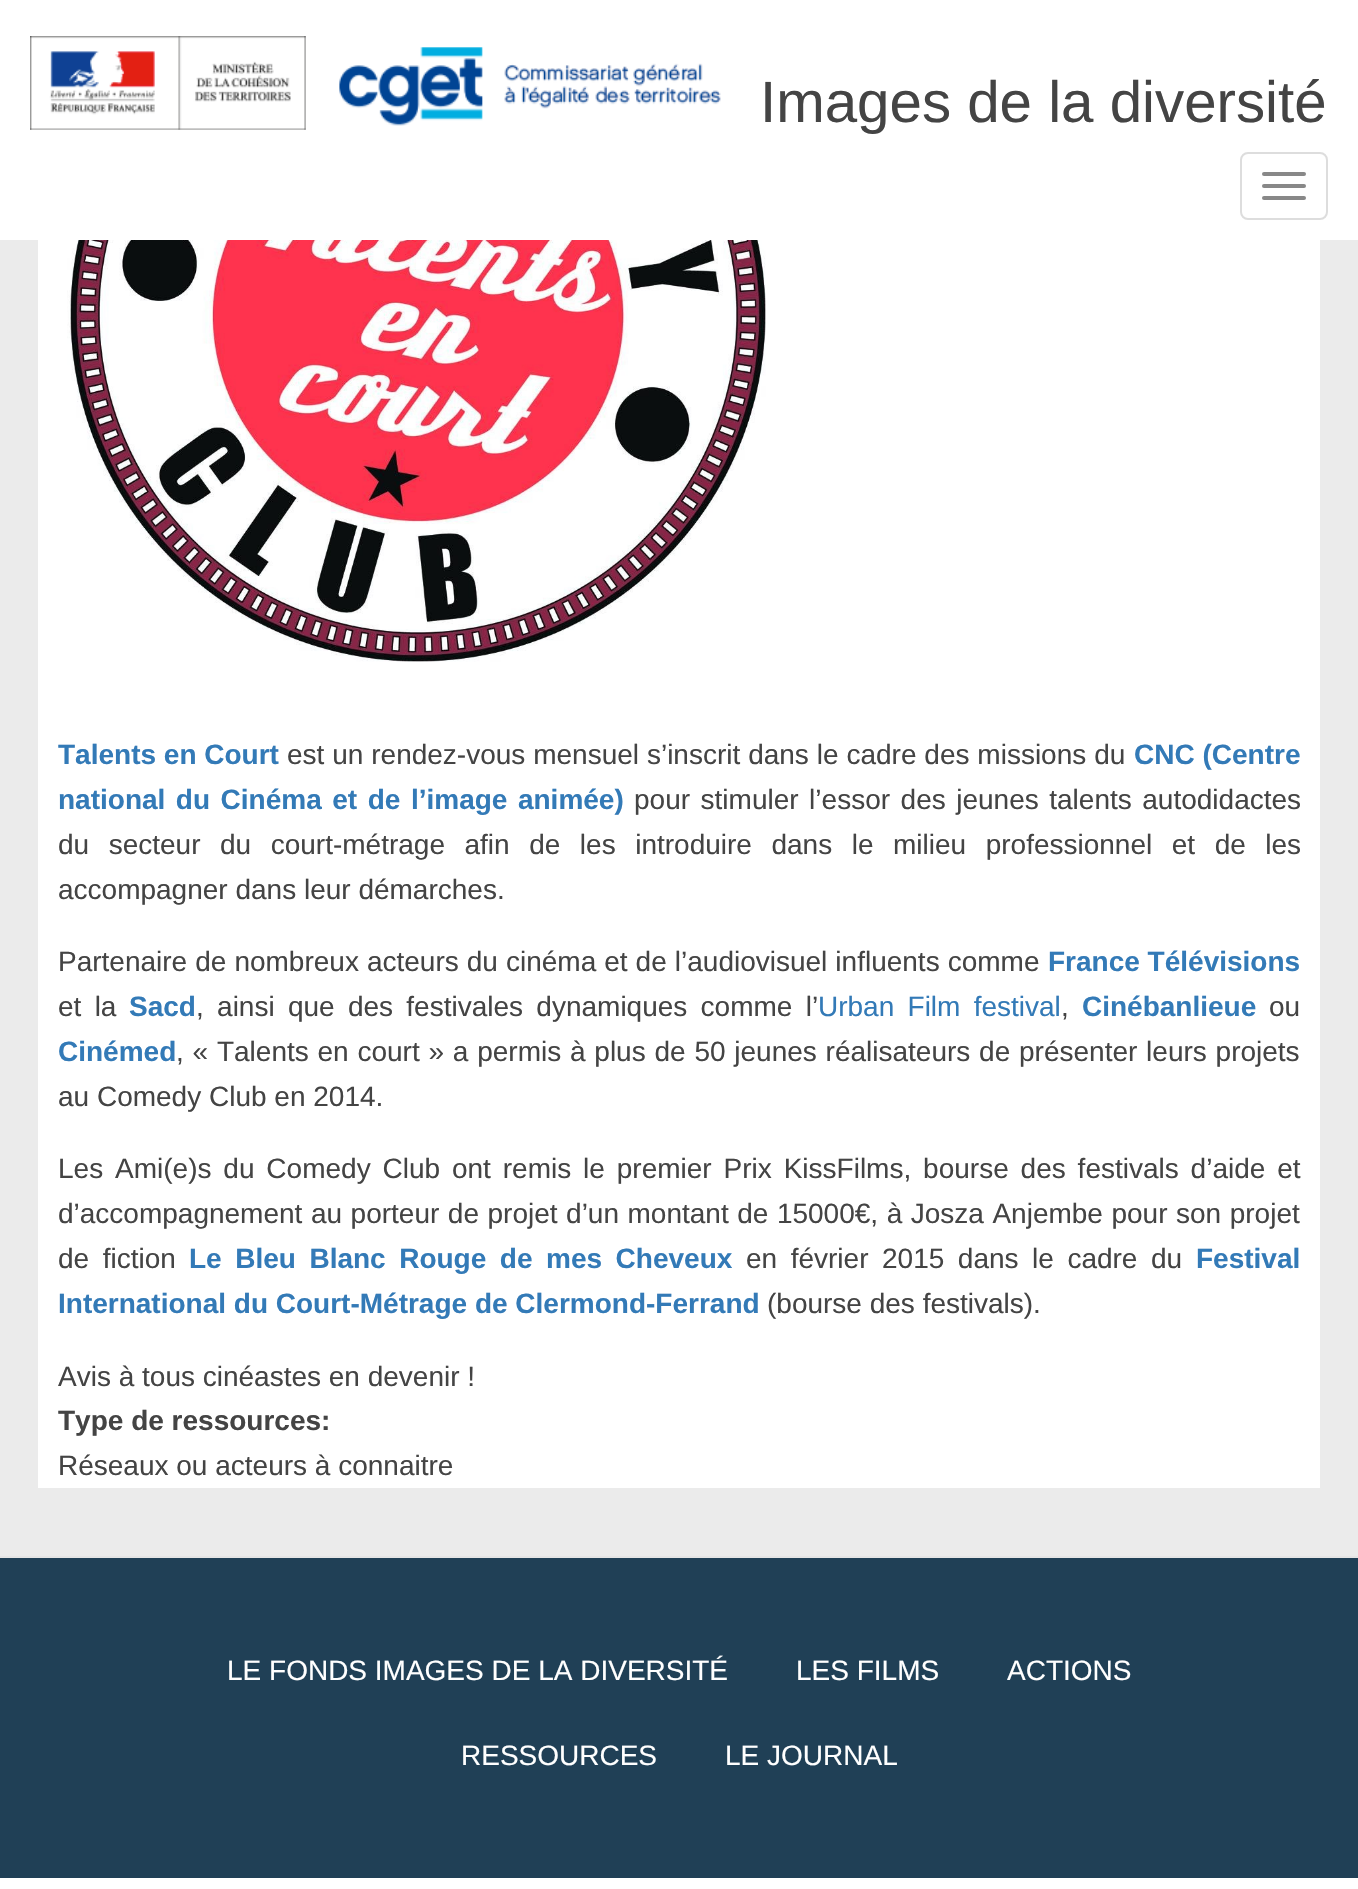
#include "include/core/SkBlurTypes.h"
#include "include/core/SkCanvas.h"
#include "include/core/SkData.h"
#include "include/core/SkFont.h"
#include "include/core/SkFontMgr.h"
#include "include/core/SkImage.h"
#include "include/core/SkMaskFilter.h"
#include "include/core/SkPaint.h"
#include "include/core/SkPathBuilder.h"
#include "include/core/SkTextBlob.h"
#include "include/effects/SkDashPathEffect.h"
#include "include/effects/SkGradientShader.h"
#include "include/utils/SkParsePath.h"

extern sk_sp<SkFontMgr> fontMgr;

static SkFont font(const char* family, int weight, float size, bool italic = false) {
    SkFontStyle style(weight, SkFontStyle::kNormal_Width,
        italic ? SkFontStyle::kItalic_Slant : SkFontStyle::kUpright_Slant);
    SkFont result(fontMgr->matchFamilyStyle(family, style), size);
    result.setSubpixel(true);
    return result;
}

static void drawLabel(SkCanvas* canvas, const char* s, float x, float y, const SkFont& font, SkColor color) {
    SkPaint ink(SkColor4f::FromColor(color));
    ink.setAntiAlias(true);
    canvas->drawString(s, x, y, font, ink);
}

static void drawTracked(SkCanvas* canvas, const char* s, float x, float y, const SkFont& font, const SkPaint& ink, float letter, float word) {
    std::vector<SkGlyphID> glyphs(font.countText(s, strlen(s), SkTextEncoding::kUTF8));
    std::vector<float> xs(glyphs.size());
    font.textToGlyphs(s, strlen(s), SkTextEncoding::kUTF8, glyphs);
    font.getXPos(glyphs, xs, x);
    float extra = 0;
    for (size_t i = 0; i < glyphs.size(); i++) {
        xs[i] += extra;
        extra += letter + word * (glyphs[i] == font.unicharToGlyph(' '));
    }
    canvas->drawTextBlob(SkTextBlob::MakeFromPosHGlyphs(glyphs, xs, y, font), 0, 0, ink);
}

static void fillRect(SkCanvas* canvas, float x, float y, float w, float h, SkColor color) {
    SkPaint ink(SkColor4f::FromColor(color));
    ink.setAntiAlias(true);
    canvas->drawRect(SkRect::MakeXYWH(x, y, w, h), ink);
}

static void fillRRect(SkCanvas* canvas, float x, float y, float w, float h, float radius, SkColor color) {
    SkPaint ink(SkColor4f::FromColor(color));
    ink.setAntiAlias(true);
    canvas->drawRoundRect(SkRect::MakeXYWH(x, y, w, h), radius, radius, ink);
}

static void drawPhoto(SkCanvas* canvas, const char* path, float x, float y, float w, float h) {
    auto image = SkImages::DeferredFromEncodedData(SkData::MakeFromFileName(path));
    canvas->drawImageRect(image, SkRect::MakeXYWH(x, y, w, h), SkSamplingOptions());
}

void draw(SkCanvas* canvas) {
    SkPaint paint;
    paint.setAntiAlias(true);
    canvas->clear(0xFFEBEBEB);
    fillRect(canvas, 0, 0, 1358, 240, 0xFFFFFFFF);
    drawPhoto(canvas, "assets/img1.png", 30, 36, 691, 94);
    SkFont font1 = font("Liberation Sans", 400, 58.25f);
    drawLabel(canvas, "Images de la diversité", 760, 122, font1, 0xFF444444);
    paint.setStroke(true);
    paint.setStrokeWidth(2);
    paint.setColor(0xFFDDDDDD);
    canvas->drawRoundRect(SkRect::MakeXYWH(1241, 153, 86, 66), 7, 7, paint);
    fillRRect(canvas, 1262, 172, 44, 4, 2, 0xFF888888);
    fillRRect(canvas, 1262, 184, 44, 4, 2, 0xFF888888);
    fillRRect(canvas, 1262, 196, 44, 4, 2, 0xFF888888);
    fillRect(canvas, 38, 240, 1282, 1248, 0xFFFFFFFF);
    drawPhoto(canvas, "assets/img2.png", 67, 240, 699, 422);
    SkFont font2 = font("Liberation Sans", 700, 28);
    drawLabel(canvas, "Talents en Court", 58, 764, font2, 0xFF337AB7);
    SkFont font3 = font("Liberation Sans", 400, 28);
    paint.setStroke(false);
    paint.setColor(0xFF444444);
    drawTracked(canvas, "est un rendez-vous mensuel s’inscrit dans le cadre des missions du", 287, 764, font3, paint, 0, 0.1f);
    drawLabel(canvas, "CNC (Centre", 1134, 764, font2, 0xFF337AB7);
    paint.setColor(0xFF337AB7);
    drawTracked(canvas, "national du Cinéma et de l’image animée)", 58, 809, font2, paint, 0, 2.75f);
    paint.setColor(0xFF444444);
    drawTracked(canvas, "pour stimuler l’essor des jeunes talents autodidactes", 634, 809, font3, paint, 0, 2.75f);
    drawTracked(canvas, "du secteur du court-métrage afin de les introduire dans le milieu professionnel et de les", 58, 854, font3, paint, 0, 11.75f);
    drawLabel(canvas, "accompagner dans leur démarches.", 58, 899, font3, 0xFF444444);
    drawTracked(canvas, "Partenaire de nombreux acteurs du cinéma et de l’audiovisuel influents comme", 58, 971, font3, paint, 0, 0.25f);
    drawLabel(canvas, "France Télévisions", 1048, 971, font2, 0xFF337AB7);
    drawTracked(canvas, "et la", 58, 1016, font3, paint, 0, 5.5f);
    drawLabel(canvas, "Sacd", 129, 1016, font2, 0xFF337AB7);
    drawTracked(canvas, ", ainsi que des festivales dynamiques comme l’", 196, 1016, font3, paint, 0, 5.5f);
    paint.setColor(0xFF337AB7);
    drawTracked(canvas, "Urban Film festival", 818, 1016, font3, paint, 0, 5.5f);
    drawLabel(canvas, ",", 1061, 1016, font3, 0xFF444444);
    drawLabel(canvas, "Cinébanlieue", 1082, 1016, font2, 0xFF337AB7);
    drawLabel(canvas, "ou", 1269, 1016, font3, 0xFF444444);
    drawLabel(canvas, "Cinémed", 58, 1061, font2, 0xFF337AB7);
    paint.setColor(0xFF444444);
    drawTracked(canvas, ", « Talents en court » a permis à plus de 50 jeunes réalisateurs de présenter leurs projets", 176, 1061, font3, paint, 0, 1);
    drawLabel(canvas, "au Comedy Club en 2014.", 58, 1106, font3, 0xFF444444);
    drawTracked(canvas, "Les Ami(e)s du Comedy Club ont remis le premier Prix KissFilms, bourse des festivals d’aide et", 58, 1178, font3, paint, 0, 4.1f);
    drawTracked(canvas, "d’accompagnement au porteur de projet d’un montant de 15000€, à Josza Anjembe pour son projet", 58, 1223, font3, paint, 0, 0.75f);
    drawTracked(canvas, "de fiction", 58, 1268, font3, paint, 0, 5.75f);
    paint.setColor(0xFF337AB7);
    drawTracked(canvas, "Le Bleu Blanc Rouge de mes Cheveux", 189, 1268, font2, paint, 0, 5.75f);
    paint.setColor(0xFF444444);
    drawTracked(canvas, "en février 2015 dans le cadre du", 746, 1268, font3, paint, 0, 5.75f);
    drawLabel(canvas, "Festival", 1196, 1268, font2, 0xFF337AB7);
    drawLabel(canvas, "International du Court-Métrage de Clermond-Ferrand", 58, 1313, font2, 0xFF337AB7);
    drawLabel(canvas, "(bourse des festivals).", 767, 1313, font3, 0xFF444444);
    drawLabel(canvas, "Avis à tous cinéastes en devenir !", 58, 1386, font3, 0xFF444444);
    drawLabel(canvas, "Type de ressources:", 58, 1430, font2, 0xFF444444);
    drawLabel(canvas, "Réseaux ou acteurs à connaitre", 58, 1475, font3, 0xFF444444);
    fillRect(canvas, 0, 1558, 1358, 320, 0xFF204056);
    fillRect(canvas, 0, 1556, 1358, 2, 0xFFE5E5E5);
    drawLabel(canvas, "LE FONDS IMAGES DE LA DIVERSITÉ", 227, 1680, font3, 0xFFFFFFFF);
    drawLabel(canvas, "LES FILMS", 796, 1680, font3, 0xFFFFFFFF);
    drawLabel(canvas, "ACTIONS", 1007, 1680, font3, 0xFFFFFFFF);
    drawLabel(canvas, "RESSOURCES", 461, 1765, font3, 0xFFFFFFFF);
    drawLabel(canvas, "LE JOURNAL", 725, 1765, font3, 0xFFFFFFFF);
    fillRect(canvas, 0, 1878, 1358, 11, 0xFFFFFFFF);
}
